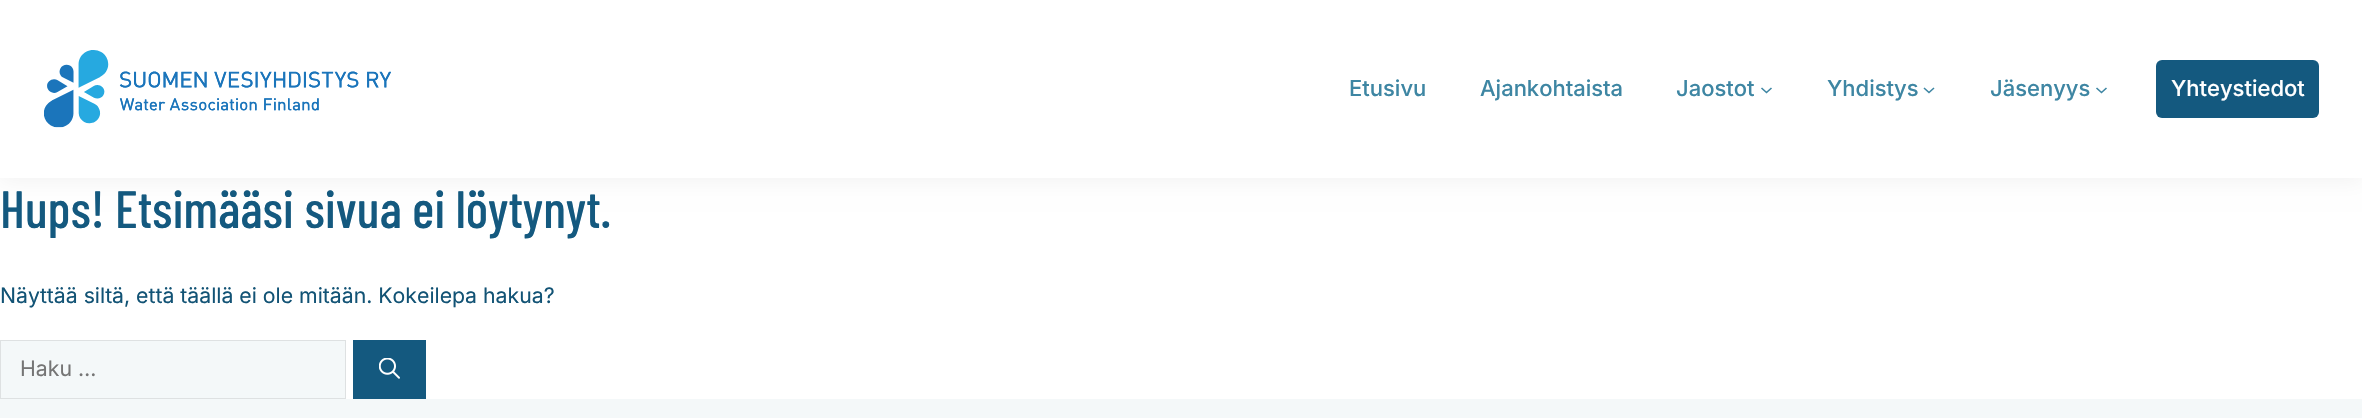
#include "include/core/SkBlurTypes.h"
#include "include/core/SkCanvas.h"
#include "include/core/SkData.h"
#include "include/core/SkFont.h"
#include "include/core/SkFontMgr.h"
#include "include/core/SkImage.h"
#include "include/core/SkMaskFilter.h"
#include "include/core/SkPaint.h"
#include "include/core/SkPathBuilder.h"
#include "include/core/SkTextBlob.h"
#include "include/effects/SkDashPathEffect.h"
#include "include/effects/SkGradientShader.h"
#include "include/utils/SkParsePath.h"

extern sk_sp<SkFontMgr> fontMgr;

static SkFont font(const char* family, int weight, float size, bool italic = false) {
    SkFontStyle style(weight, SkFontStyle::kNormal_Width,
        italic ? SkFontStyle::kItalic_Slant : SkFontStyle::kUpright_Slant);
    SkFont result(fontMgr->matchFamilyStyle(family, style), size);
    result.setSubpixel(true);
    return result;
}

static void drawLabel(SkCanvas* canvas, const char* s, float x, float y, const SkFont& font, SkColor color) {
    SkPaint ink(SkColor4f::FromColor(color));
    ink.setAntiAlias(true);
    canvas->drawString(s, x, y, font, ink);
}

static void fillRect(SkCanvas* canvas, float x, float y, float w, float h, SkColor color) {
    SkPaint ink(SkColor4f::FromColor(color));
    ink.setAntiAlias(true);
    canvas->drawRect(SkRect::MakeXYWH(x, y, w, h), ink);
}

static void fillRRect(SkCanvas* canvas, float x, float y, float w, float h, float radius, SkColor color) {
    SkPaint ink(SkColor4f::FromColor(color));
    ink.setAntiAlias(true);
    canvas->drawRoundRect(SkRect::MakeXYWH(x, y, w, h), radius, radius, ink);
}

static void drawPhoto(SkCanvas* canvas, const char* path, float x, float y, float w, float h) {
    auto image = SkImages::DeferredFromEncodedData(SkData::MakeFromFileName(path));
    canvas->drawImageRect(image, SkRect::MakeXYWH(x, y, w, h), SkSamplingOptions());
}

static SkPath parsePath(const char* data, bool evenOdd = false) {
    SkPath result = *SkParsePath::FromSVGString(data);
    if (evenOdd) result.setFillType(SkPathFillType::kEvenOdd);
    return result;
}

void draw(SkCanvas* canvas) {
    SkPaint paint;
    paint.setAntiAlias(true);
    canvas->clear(0xFFF4F8F9);
    fillRect(canvas, 0, 178, 2362, 221, 0xFFFFFFFF);
    paint.setColor(0x0D000000);
    paint.setMaskFilter(SkMaskFilter::MakeBlur(kNormal_SkBlurStyle, 10.5f));
    canvas->drawRect(SkRect::MakeXYWH(0, 4, 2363, 177), paint);
    paint.setMaskFilter(nullptr);
    fillRect(canvas, 0, 0, 2362, 178, 0xFFFFFFFF);
    drawPhoto(canvas, "assets/img1.png", 44, 50, 347, 78);
    SkFont font1 = font("Inter", 500, 22);
    drawLabel(canvas, "Etusivu", 1349, 96, font1, 0xFF3E86A3);
    drawLabel(canvas, "Ajankohtaista", 1480, 96, font1, 0xFF3E86A3);
    drawLabel(canvas, "Jaostot", 1676, 96, font1, 0xFF3E86A3);
    paint.setStroke(true);
    paint.setStrokeWidth(1.6f);
    paint.setColor(0xFF3E86A3);
    canvas->drawPath(parsePath("M1761.5 88L1766.5 92.5L1771.5 88"), paint);
    drawLabel(canvas, "Yhdistys", 1827, 96, font1, 0xFF3E86A3);
    canvas->drawPath(parsePath("M1924 88L1929 92.5L1934 88"), paint);
    drawLabel(canvas, "Jäsenyys", 1990, 96, font1, 0xFF3E86A3);
    canvas->drawPath(parsePath("M2096.5 88L2101.5 92.5L2106.5 88"), paint);
    fillRRect(canvas, 2156, 60, 163, 58, 6, 0xFF14597F);
    drawLabel(canvas, "Yhteystiedot", 2171, 96, font1, 0xFFFFFFFF);
    SkFont font2 = font("Barlow Condensed", 500, 52.5f);
    drawLabel(canvas, "Hups! Etsimääsi sivua ei löytynyt.", 0, 228, font2, 0xFF14597F);
    SkFont font3 = font("Inter", 400, 21.25f);
    drawLabel(canvas, "Näyttää siltä, että täällä ei ole mitään. Kokeilepa hakua?", 0, 303, font3, 0xFF125375);
    paint.setStroke(false);
    paint.setColor(0xFFF4F8F9);
    canvas->drawRect(SkRect::MakeXYWH(0.5f, 340.5f, 345, 58), paint);
    paint.setStroke(true);
    paint.setStrokeWidth(1);
    paint.setColor(0xFFDEE1E2);
    canvas->drawRect(SkRect::MakeXYWH(0.5f, 340.5f, 345, 58), paint);
    drawLabel(canvas, "Haku …", 20, 376, font3, 0xFF757575);
    fillRect(canvas, 353, 340, 73, 59, 0xFF14597F);
    drawPhoto(canvas, "assets/img2.png", 379, 358, 21, 21);
}
